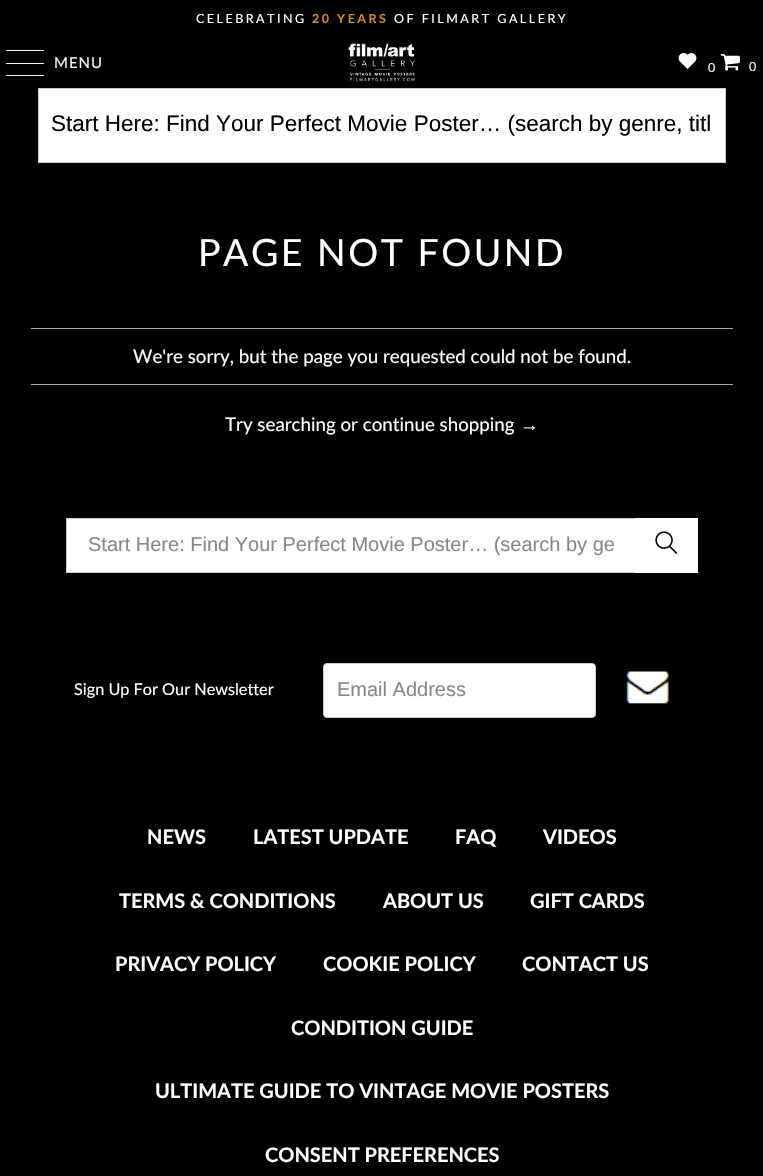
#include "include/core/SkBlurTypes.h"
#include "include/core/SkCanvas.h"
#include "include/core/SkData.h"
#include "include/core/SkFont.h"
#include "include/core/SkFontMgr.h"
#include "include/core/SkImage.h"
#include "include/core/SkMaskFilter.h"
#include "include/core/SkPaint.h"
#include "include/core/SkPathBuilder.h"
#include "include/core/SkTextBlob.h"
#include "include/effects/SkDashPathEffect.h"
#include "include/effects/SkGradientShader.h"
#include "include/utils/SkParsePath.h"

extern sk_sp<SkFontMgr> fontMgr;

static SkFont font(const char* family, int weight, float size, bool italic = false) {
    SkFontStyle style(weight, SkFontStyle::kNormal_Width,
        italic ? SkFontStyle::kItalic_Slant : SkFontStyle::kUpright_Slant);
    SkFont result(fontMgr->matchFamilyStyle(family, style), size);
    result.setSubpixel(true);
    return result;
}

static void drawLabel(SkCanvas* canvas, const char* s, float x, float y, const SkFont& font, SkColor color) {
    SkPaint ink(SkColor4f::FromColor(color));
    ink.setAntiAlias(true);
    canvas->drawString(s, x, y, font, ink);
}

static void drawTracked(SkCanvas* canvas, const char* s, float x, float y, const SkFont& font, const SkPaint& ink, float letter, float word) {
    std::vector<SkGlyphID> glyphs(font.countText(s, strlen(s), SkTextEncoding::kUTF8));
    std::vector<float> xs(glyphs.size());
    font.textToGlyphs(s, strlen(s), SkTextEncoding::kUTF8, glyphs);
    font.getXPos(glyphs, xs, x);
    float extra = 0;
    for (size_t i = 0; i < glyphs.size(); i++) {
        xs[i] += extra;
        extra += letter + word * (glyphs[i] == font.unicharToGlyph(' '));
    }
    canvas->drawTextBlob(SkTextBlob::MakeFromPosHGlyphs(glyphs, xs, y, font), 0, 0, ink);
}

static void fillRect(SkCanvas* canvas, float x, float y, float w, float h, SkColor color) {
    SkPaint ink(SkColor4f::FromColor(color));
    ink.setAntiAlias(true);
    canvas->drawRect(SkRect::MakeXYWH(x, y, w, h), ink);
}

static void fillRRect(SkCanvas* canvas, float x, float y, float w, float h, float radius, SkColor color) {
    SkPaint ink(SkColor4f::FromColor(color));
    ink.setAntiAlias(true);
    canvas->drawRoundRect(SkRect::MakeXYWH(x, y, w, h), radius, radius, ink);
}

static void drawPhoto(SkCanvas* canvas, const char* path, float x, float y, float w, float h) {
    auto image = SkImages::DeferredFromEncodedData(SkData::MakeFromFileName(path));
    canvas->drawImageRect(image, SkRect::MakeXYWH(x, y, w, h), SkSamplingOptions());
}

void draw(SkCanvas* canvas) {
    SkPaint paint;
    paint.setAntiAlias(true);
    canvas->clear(0xFF000000);
    SkFont font1 = font("Lato", 400, 12.5f);
    paint.setColor(0xFFFFFFFF);
    drawTracked(canvas, "CELEBRATING", 196, 23, font1, paint, 2.5f, 0);
    SkFont font2 = font("Lato", 700, 12.5f);
    paint.setColor(0xFFD58821);
    drawTracked(canvas, "20 YEARS", 312, 23, font2, paint, 2.5f, 0);
    paint.setColor(0xFFFFFFFF);
    drawTracked(canvas, "OF FILMART GALLERY", 394, 23, font1, paint, 2.5f, 0);
    fillRRect(canvas, 6, 50, 38, 1, 0.5f, 0xFFF4F4F4);
    fillRRect(canvas, 6, 63, 38, 1, 0.5f, 0xFFF4F4F4);
    fillRRect(canvas, 6, 75, 38, 1, 0.5f, 0xFFF4F4F4);
    SkFont font3 = font("Lato", 400, 15);
    paint.setColor(0xFFF4F4F4);
    drawTracked(canvas, "MENU", 54, 68, font3, paint, 1, 0);
    drawPhoto(canvas, "assets/img1.png", 348, 43, 67, 39);
    drawPhoto(canvas, "assets/img2.png", 678, 53, 19, 16);
    drawLabel(canvas, "0", 708, 72, font1, 0xFFF4F4F4);
    drawPhoto(canvas, "assets/img3.png", 720, 54, 20, 17);
    drawTracked(canvas, "0", 749, 71, font1, paint, 1, 0);
    paint.setColor(0xFFFFFFFF);
    canvas->drawRect(SkRect::MakeXYWH(38.5f, 88.5f, 687, 74), paint);
    paint.setStroke(true);
    paint.setStrokeWidth(1);
    paint.setColor(0xFFCCCCCC);
    canvas->drawRect(SkRect::MakeXYWH(38.5f, 88.5f, 687, 74), paint);
    SkFont font4 = font("Liberation Sans", 400, 22.5f);
    drawLabel(canvas, "Start Here: Find Your Perfect Movie Poster… (search by genre, titl", 51, 131, font4, 0xFF000000);
    SkFont font5 = font("Lato", 400, 37.5f);
    paint.setStroke(false);
    paint.setColor(0xFFFFFFFF);
    drawTracked(canvas, "PAGE NOT FOUND", 198, 266, font5, paint, 2.5f, 0);
    fillRect(canvas, 31, 328, 702, 1, 0xFFAAAAAA);
    fillRect(canvas, 31, 384, 702, 1, 0xFFAAAAAA);
    SkFont font6 = font("Lato", 400, 18.75f);
    drawLabel(canvas, "We're sorry, but the page you requested could not be found.", 133, 363, font6, 0xFFFFFFFF);
    drawLabel(canvas, "Try searching or continue shopping", 225, 431, font6, 0xFFFFFFFF);
    SkFont font7 = font("Liberation Sans", 400, 18.75f);
    drawLabel(canvas, "→", 520, 431, font7, 0xFFFFFFFF);
    fillRect(canvas, 67, 519, 568, 53, 0xFFFFFFFF);
    paint.setStroke(true);
    paint.setColor(0xFFCCCCCC);
    canvas->drawRect(SkRect::MakeXYWH(66.5f, 518.5f, 631, 54), paint);
    SkFont font8 = font("Liberation Sans", 400, 20);
    drawLabel(canvas, "Start Here: Find Your Perfect Movie Poster… (search by ge", 88, 551, font8, 0xFF888888);
    fillRect(canvas, 635, 518, 63, 55, 0xFFFFFFFF);
    drawPhoto(canvas, "assets/img4.png", 655, 531, 23, 23);
    SkFont font9 = font("Lato", 400, 16.25f);
    drawLabel(canvas, "Sign Up For Our Newsletter", 74, 695, font9, 0xFFFFFFFF);
    paint.setStroke(false);
    paint.setColor(0xFFFFFFFF);
    canvas->drawRoundRect(SkRect::MakeXYWH(323.5f, 663.5f, 272, 54), 3.5f, 3.5f, paint);
    paint.setStroke(true);
    paint.setColor(0xFFCCCCCC);
    canvas->drawRoundRect(SkRect::MakeXYWH(323.5f, 663.5f, 272, 54), 3.5f, 3.5f, paint);
    drawLabel(canvas, "Email Address", 337, 696, font8, 0xFF888888);
    drawPhoto(canvas, "assets/img5.png", 626, 671, 43, 33);
    SkFont font10 = font("Lato", 700, 20);
    drawLabel(canvas, "NEWS", 147, 844, font10, 0xFFFFFFFF);
    drawLabel(canvas, "LATEST UPDATE", 253, 844, font10, 0xFFFFFFFF);
    drawLabel(canvas, "FAQ", 455, 844, font10, 0xFFFFFFFF);
    drawLabel(canvas, "VIDEOS", 543, 844, font10, 0xFFFFFFFF);
    drawLabel(canvas, "TERMS & CONDITIONS", 119, 908, font10, 0xFFFFFFFF);
    drawLabel(canvas, "ABOUT US", 383, 908, font10, 0xFFFFFFFF);
    drawLabel(canvas, "GIFT CARDS", 530, 908, font10, 0xFFFFFFFF);
    drawLabel(canvas, "PRIVACY POLICY", 115, 971, font10, 0xFFFFFFFF);
    drawLabel(canvas, "COOKIE POLICY", 323, 971, font10, 0xFFFFFFFF);
    drawLabel(canvas, "CONTACT US", 522, 971, font10, 0xFFFFFFFF);
    drawLabel(canvas, "CONDITION GUIDE", 291, 1035, font10, 0xFFFFFFFF);
    drawLabel(canvas, "ULTIMATE GUIDE TO VINTAGE MOVIE POSTERS", 155, 1098, font10, 0xFFFFFFFF);
    drawLabel(canvas, "CONSENT PREFERENCES", 265, 1162, font10, 0xFFFFFFFF);
}
